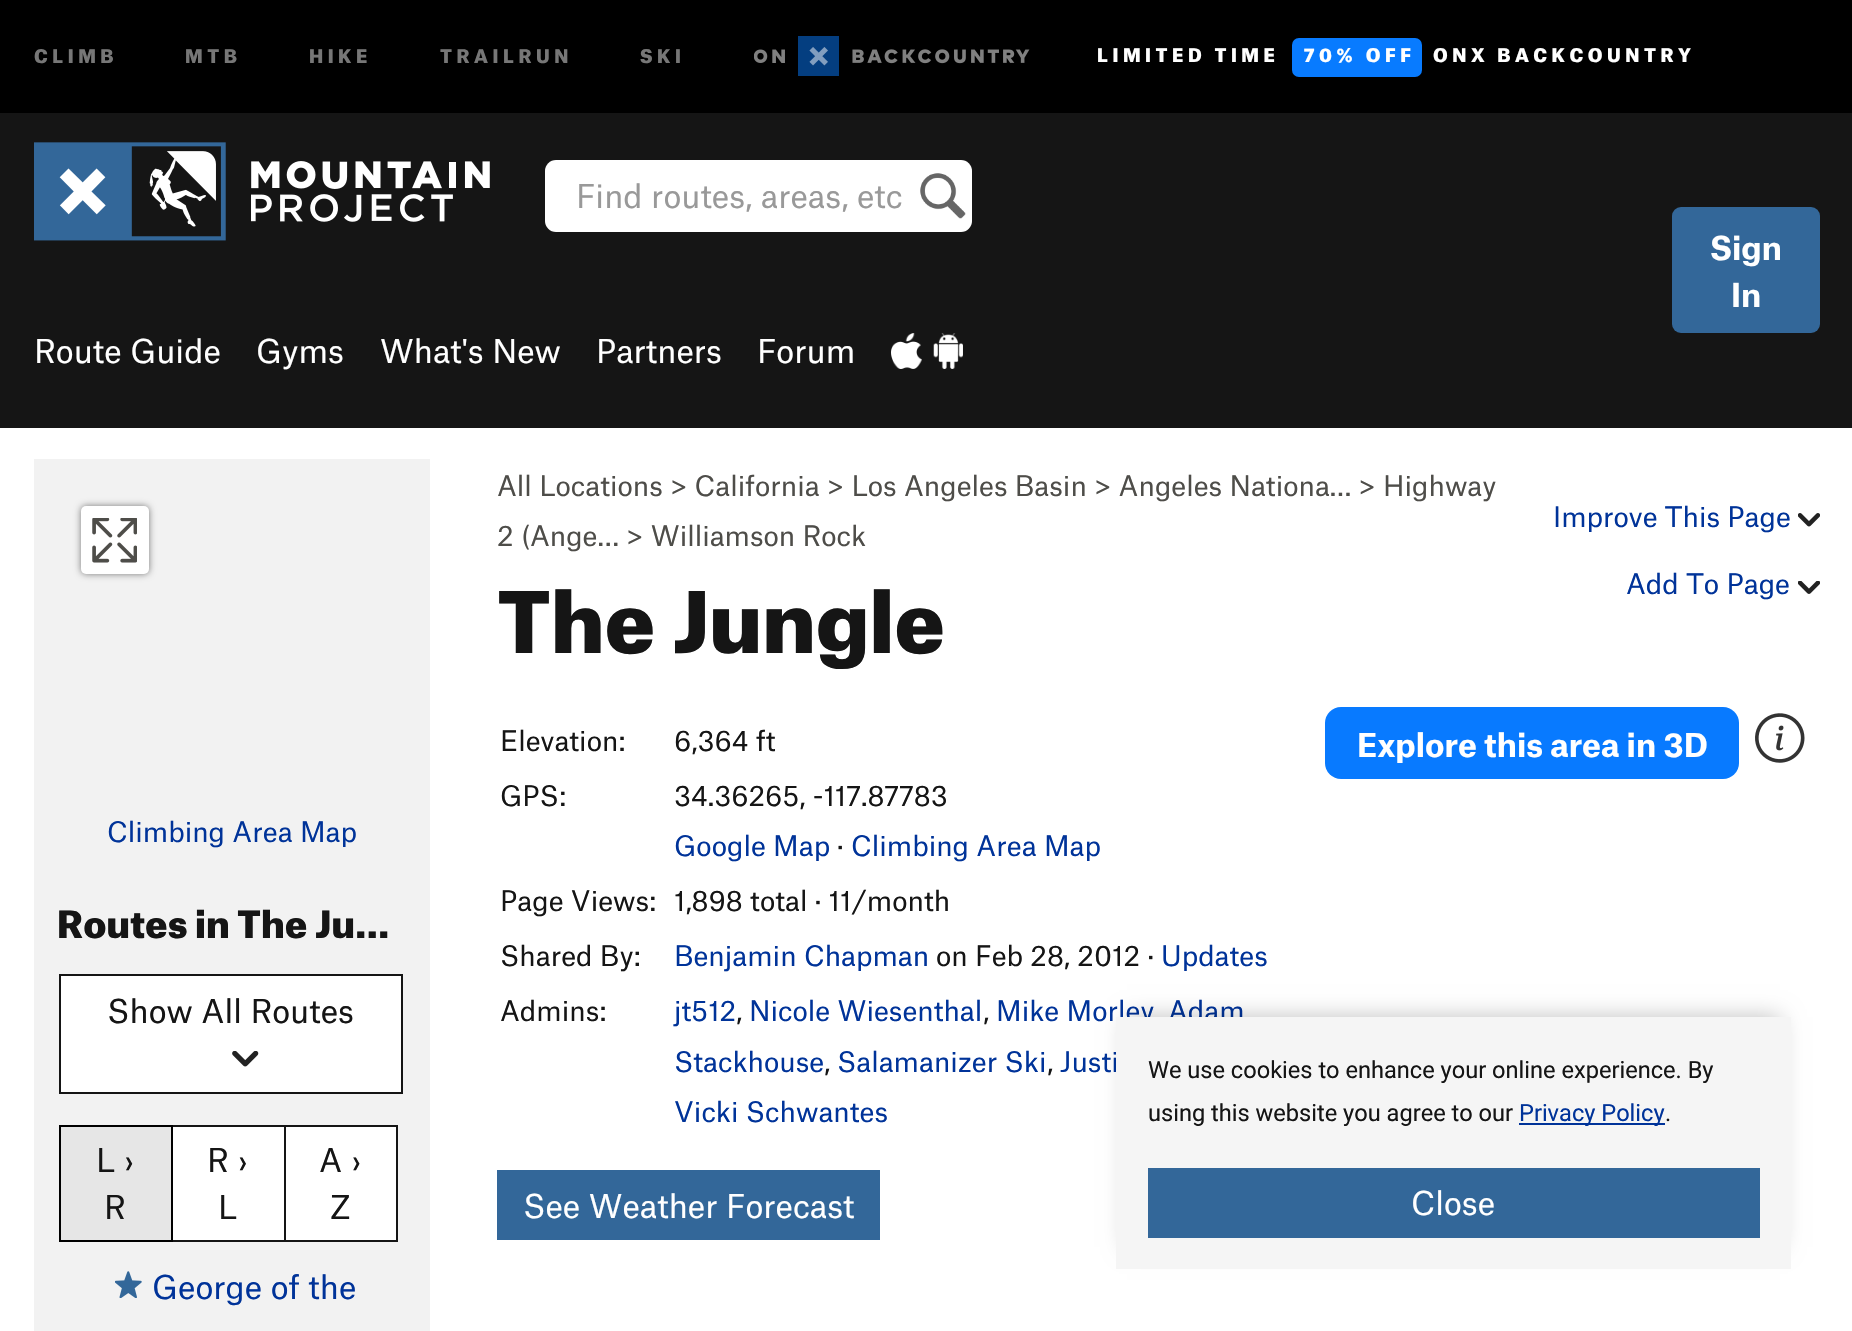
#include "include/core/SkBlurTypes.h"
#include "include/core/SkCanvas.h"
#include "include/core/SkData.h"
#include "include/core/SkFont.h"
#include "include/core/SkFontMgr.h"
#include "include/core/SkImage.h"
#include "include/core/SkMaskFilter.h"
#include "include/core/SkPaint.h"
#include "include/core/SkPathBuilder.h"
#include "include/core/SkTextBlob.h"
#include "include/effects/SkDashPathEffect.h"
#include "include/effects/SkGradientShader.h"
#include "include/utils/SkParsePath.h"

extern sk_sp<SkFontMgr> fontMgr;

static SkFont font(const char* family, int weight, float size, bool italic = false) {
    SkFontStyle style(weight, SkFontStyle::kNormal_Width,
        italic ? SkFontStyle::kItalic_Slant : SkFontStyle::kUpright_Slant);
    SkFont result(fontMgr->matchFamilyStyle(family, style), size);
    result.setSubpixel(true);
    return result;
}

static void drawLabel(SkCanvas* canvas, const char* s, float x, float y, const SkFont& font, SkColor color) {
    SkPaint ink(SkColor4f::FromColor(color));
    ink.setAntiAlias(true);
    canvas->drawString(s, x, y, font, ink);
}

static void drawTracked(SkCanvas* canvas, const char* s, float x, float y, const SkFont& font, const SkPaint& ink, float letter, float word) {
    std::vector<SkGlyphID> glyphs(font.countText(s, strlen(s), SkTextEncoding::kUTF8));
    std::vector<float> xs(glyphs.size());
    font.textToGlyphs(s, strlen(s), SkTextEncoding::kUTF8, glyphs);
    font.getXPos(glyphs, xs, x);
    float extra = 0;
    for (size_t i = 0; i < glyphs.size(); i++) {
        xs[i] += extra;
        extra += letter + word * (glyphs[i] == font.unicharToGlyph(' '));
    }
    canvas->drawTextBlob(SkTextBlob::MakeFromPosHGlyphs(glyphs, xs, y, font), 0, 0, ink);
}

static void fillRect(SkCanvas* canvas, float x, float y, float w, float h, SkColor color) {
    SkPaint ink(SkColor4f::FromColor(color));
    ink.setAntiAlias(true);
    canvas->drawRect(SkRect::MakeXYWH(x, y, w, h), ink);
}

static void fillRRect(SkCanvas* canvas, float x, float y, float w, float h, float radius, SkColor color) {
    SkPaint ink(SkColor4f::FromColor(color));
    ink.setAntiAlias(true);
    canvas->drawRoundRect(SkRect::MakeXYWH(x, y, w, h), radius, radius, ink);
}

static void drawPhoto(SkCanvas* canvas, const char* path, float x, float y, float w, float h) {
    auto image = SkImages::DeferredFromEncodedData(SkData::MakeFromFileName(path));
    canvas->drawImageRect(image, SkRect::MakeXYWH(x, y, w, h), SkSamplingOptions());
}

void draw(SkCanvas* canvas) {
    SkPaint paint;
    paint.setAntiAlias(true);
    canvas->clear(0xFFFFFFFF);
    fillRect(canvas, 0, 113, 1852, 315, 0xFF151515);
    fillRect(canvas, 0, 0, 1852, 113, 0xFF000000);
    SkFont font1 = font("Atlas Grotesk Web", 900, 18);
    paint.setColor(0xFF777777);
    drawTracked(canvas, "CLIMB", 34, 63, font1, paint, 4.5f, 0);
    drawTracked(canvas, "MTB", 185, 63, font1, paint, 4.5f, 0);
    drawTracked(canvas, "HIKE", 309, 63, font1, paint, 4.5f, 0);
    drawTracked(canvas, "TRAILRUN", 440, 63, font1, paint, 4.5f, 0);
    drawTracked(canvas, "SKI", 640, 63, font1, paint, 4.5f, 0);
    drawPhoto(canvas, "assets/img1.png", 754, 36, 276, 40);
    paint.setColor(0xFFFFFFFF);
    drawTracked(canvas, "LIMITED TIME", 1097, 62, font1, paint, 4.5f, 0);
    fillRRect(canvas, 1292, 38, 130, 39, 7, 0xFF087BFF);
    drawTracked(canvas, "70% OFF", 1304, 62, font1, paint, 4.5f, 0);
    drawTracked(canvas, "ONX BACKCOUNTRY", 1433, 62, font1, paint, 4.5f, 0);
    drawPhoto(canvas, "assets/img2.png", 34, 142, 456, 99);
    fillRRect(canvas, 545, 160, 427, 72, 11, 0xFFFFFFFF);
    drawPhoto(canvas, "assets/img3.png", 920, 173, 46, 46);
    SkFont font2 = font("Atlas Grotesk Web", 400, 31.5f);
    drawLabel(canvas, "Find routes, areas, etc", 576, 208, font2, 0xFF999999);
    drawLabel(canvas, "Route Guide", 34, 363, font2, 0xFFFFFFFF);
    drawLabel(canvas, "Gyms", 256, 363, font2, 0xFFFFFFFF);
    drawLabel(canvas, "What's New", 380, 363, font2, 0xFFFFFFFF);
    drawLabel(canvas, "Partners", 596, 363, font2, 0xFFFFFFFF);
    drawLabel(canvas, "Forum", 757, 363, font2, 0xFFFFFFFF);
    drawPhoto(canvas, "assets/img4.png", 891, 333, 31, 36);
    drawPhoto(canvas, "assets/img5.png", 933, 333, 30, 36);
    fillRRect(canvas, 1672, 207, 148, 126, 9, 0xFF336799);
    SkFont font3 = font("Atlas Grotesk Web", 700, 31.5f);
    drawLabel(canvas, "Sign", 1710, 260, font3, 0xFFFFFFFF);
    drawLabel(canvas, "In", 1731, 307, font3, 0xFFFFFFFF);
    SkFont font4 = font("Atlas Grotesk Web", 400, 27);
    drawLabel(canvas, "All Locations > California > Los Angeles Basin > Angeles Nationa… > Highway", 497, 496, font4, 0xFF4E4D49);
    drawLabel(canvas, "2 (Ange… > Williamson Rock", 497, 546, font4, 0xFF4E4D49);
    drawLabel(canvas, "Improve This Page", 1553, 527, font4, 0xFF003399);
    drawPhoto(canvas, "assets/img6.png", 1798, 513, 22, 14);
    drawLabel(canvas, "Add To Page", 1626, 594, font4, 0xFF003399);
    drawPhoto(canvas, "assets/img7.png", 1798, 581, 22, 13);
    SkFont font5 = font("Atlas Grotesk Web", 900, 81);
    drawLabel(canvas, "The Jungle", 497, 653, font5, 0xFF151515);
    fillRect(canvas, 34, 459, 396, 872, 0xFFF2F2F2);
    paint.setColor(0x80000000);
    paint.setMaskFilter(SkMaskFilter::MakeBlur(kNormal_SkBlurStyle, 3.5f));
    canvas->drawRoundRect(SkRect::MakeXYWH(81, 506, 68, 68), 5, 5, paint);
    paint.setMaskFilter(nullptr);
    fillRRect(canvas, 81, 506, 68, 68, 5, 0xFFFFFFFF);
    drawPhoto(canvas, "assets/img8.png", 92, 518, 45, 45);
    drawLabel(canvas, "Climbing Area Map", 107, 842, font4, 0xFF003399);
    SkFont font6 = font("Atlas Grotesk Web", 900, 36);
    drawLabel(canvas, "Routes in The Ju…", 57, 938, font6, 0xFF151515);
    paint.setColor(0xFFFFFFFF);
    canvas->drawRect(SkRect::MakeXYWH(60, 975, 342, 118), paint);
    paint.setStroke(true);
    paint.setStrokeWidth(2);
    paint.setColor(0xFF151515);
    canvas->drawRect(SkRect::MakeXYWH(60, 975, 342, 118), paint);
    drawLabel(canvas, "Show All Routes", 107, 1023, font2, 0xFF151515);
    drawPhoto(canvas, "assets/img9.png", 232, 1051, 27, 16);
    paint.setStroke(false);
    paint.setColor(0xFFFFFFFF);
    canvas->drawRect(SkRect::MakeXYWH(172, 1126, 113, 115), paint);
    paint.setStroke(true);
    paint.setColor(0xFF151515);
    canvas->drawRect(SkRect::MakeXYWH(172, 1126, 113, 115), paint);
    paint.setStroke(false);
    paint.setColor(0xFFE6E6E6);
    canvas->drawRect(SkRect::MakeXYWH(60, 1126, 112, 115), paint);
    paint.setStroke(true);
    paint.setColor(0xFF000000);
    canvas->drawRect(SkRect::MakeXYWH(60, 1126, 112, 115), paint);
    drawLabel(canvas, "L ›", 96, 1172, font2, 0xFF151515);
    drawLabel(canvas, "R", 104, 1219, font2, 0xFF151515);
    drawLabel(canvas, "R ›", 207, 1172, font2, 0xFF151515);
    drawLabel(canvas, "L", 218, 1219, font2, 0xFF151515);
    paint.setStroke(false);
    paint.setColor(0xFFFFFFFF);
    canvas->drawRect(SkRect::MakeXYWH(285, 1126, 112, 115), paint);
    paint.setStroke(true);
    paint.setColor(0xFF151515);
    canvas->drawRect(SkRect::MakeXYWH(285, 1126, 112, 115), paint);
    drawLabel(canvas, "A ›", 319, 1172, font2, 0xFF151515);
    drawLabel(canvas, "Z", 330, 1219, font2, 0xFF151515);
    drawPhoto(canvas, "assets/img10.png", 115, 1271, 27, 27);
    drawLabel(canvas, "George of the", 152, 1299, font2, 0xFF003399);
    drawLabel(canvas, "Elevation:", 500, 751, font4, 0xFF151515);
    drawLabel(canvas, "6,364 ft", 674, 751, font4, 0xFF151515);
    drawLabel(canvas, "GPS:", 500, 806, font4, 0xFF151515);
    drawLabel(canvas, "34.36265, -117.87783", 674, 806, font4, 0xFF151515);
    drawLabel(canvas, "Google Map", 674, 856, font4, 0xFF003399);
    drawLabel(canvas, "·", 837, 856, font4, 0xFF151515);
    drawLabel(canvas, "Climbing Area Map", 851, 856, font4, 0xFF003399);
    drawLabel(canvas, "Page Views:", 500, 911, font4, 0xFF151515);
    drawLabel(canvas, "1,898 total · 11/month", 674, 911, font4, 0xFF151515);
    drawLabel(canvas, "Shared By:", 500, 966, font4, 0xFF151515);
    drawLabel(canvas, "Benjamin Chapman", 674, 966, font4, 0xFF003399);
    drawLabel(canvas, "on Feb 28, 2012 ·", 936, 966, font4, 0xFF151515);
    drawLabel(canvas, "Updates", 1161, 966, font4, 0xFF003399);
    drawLabel(canvas, "Admins:", 500, 1021, font4, 0xFF151515);
    drawLabel(canvas, "jt512", 674, 1021, font4, 0xFF003399);
    drawLabel(canvas, ",", 736, 1021, font4, 0xFF151515);
    drawLabel(canvas, "Nicole Wiesenthal", 749, 1021, font4, 0xFF003399);
    drawLabel(canvas, ",", 983, 1021, font4, 0xFF151515);
    drawLabel(canvas, "Mike Morley", 996, 1021, font4, 0xFF003399);
    drawLabel(canvas, "Adam", 1168, 1021, font4, 0xFF003399);
    drawLabel(canvas, "Stackhouse", 674, 1072, font4, 0xFF003399);
    drawLabel(canvas, ",", 824, 1072, font4, 0xFF151515);
    drawLabel(canvas, "Salamanizer Ski", 837, 1072, font4, 0xFF003399);
    drawLabel(canvas, ",", 1047, 1072, font4, 0xFF151515);
    drawLabel(canvas, "Justi", 1060, 1072, font4, 0xFF003399);
    drawLabel(canvas, "Vicki Schwantes", 674, 1122, font4, 0xFF003399);
    fillRect(canvas, 497, 1170, 383, 70, 0xFF336799);
    drawLabel(canvas, "See Weather Forecast", 523, 1218, font2, 0xFFFFFFFF);
    fillRRect(canvas, 1325, 707, 414, 72, 16, 0xFF087AFF);
    drawLabel(canvas, "Explore this area in 3D", 1357, 757, font3, 0xFFFFFFFF);
    drawPhoto(canvas, "assets/img11.png", 1755, 713, 50, 50);
    paint.setStroke(false);
    paint.setColor(0x40000000);
    paint.setMaskFilter(SkMaskFilter::MakeBlur(kNormal_SkBlurStyle, 11));
    canvas->drawRect(SkRect::MakeXYWH(1127, 1017, 653, 230), paint);
    paint.setMaskFilter(nullptr);
    fillRect(canvas, 1116, 1017, 675, 252, 0xFFF5F5F5);
    SkFont font7 = font("Roboto", 400, 23.6f);
    drawLabel(canvas, "We use cookies to enhance your online experience. By", 1148, 1078, font7, 0xFF151515);
    drawLabel(canvas, "using this website you agree to our", 1148, 1121, font7, 0xFF151515);
    fillRect(canvas, 1519, 1123, 146, 2, 0xFF003399);
    drawLabel(canvas, "Privacy Policy", 1519, 1121, font7, 0xFF003399);
    drawLabel(canvas, ".", 1665, 1121, font7, 0xFF151515);
    fillRect(canvas, 1148, 1168, 612, 70, 0xFF336799);
    drawLabel(canvas, "Close", 1411, 1215, font2, 0xFFFFFFFF);
}
